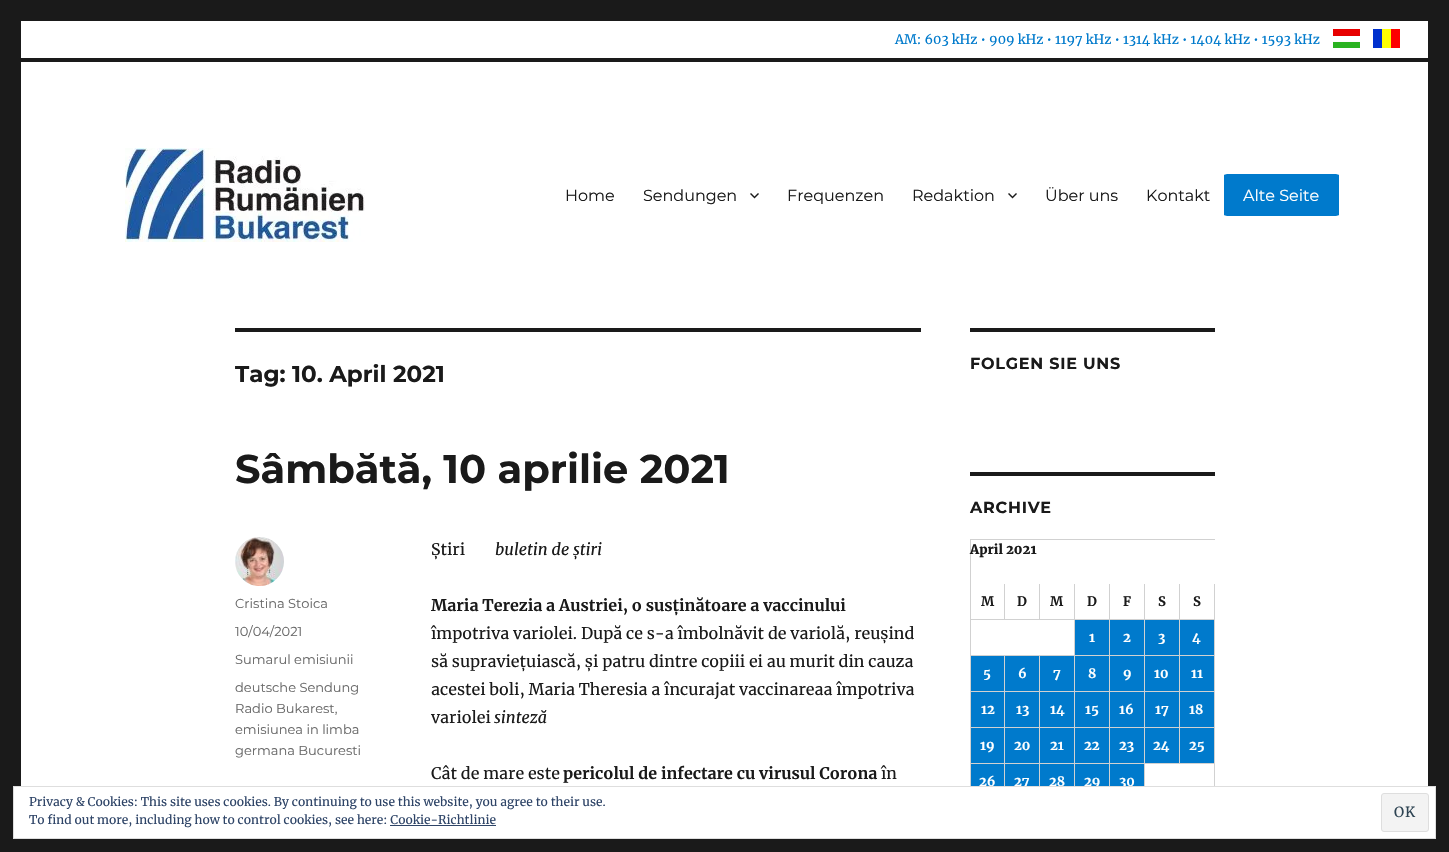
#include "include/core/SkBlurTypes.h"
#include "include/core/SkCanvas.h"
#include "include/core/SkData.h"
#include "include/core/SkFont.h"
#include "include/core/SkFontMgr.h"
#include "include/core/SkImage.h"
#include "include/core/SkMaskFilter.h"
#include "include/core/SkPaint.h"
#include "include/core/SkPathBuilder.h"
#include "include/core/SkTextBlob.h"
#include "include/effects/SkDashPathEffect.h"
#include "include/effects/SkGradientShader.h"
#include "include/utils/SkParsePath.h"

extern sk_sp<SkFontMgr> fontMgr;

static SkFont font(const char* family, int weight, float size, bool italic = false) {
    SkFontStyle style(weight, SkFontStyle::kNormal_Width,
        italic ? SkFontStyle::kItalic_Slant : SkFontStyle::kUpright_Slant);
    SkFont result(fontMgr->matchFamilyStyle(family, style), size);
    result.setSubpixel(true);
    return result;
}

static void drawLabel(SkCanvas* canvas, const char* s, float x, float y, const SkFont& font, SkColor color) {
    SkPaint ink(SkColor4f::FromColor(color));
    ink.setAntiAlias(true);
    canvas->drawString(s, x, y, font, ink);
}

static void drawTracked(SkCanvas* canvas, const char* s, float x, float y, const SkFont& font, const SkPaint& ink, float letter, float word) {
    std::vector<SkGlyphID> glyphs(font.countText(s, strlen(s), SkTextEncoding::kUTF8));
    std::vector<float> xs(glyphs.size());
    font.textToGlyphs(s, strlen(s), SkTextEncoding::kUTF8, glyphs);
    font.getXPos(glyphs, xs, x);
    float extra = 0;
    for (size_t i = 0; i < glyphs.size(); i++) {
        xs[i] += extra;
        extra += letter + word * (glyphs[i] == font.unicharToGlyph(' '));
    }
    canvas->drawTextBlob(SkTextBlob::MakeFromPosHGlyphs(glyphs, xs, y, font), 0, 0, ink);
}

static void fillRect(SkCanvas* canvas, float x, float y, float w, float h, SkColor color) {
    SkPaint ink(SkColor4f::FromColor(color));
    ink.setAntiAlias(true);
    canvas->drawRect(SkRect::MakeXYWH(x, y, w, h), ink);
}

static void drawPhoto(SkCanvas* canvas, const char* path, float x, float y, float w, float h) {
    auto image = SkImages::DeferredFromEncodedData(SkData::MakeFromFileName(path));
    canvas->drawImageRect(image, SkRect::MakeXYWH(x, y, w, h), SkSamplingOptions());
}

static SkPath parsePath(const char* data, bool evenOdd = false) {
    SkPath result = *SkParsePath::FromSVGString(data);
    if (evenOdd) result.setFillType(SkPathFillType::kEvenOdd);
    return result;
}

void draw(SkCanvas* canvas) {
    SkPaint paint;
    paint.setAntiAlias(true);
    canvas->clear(0xFF1A1A1A);
    fillRect(canvas, 21, 21, 1407, 765, 0xFFFFFFFF);
    fillRect(canvas, 21, 58, 1407, 4, 0xFF1A1A1A);
    SkFont font1 = font("Merriweather", 400, 13);
    drawLabel(canvas, "AM: 603 kHz • 909 kHz • 1197 kHz • 1314 kHz • 1404 kHz • 1593 kHz", 895, 44, font1, 0xFF007ACC);
    drawPhoto(canvas, "assets/img1.png", 1333, 29, 27, 19);
    drawPhoto(canvas, "assets/img2.png", 1373, 29, 27, 19);
    drawPhoto(canvas, "assets/img3.png", 125, 148, 240, 94);
    SkFont font2 = font("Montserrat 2", 100, 16);
    drawLabel(canvas, "Home", 565, 201, font2, 0xFF1A1A1A);
    drawLabel(canvas, "Sendungen", 643, 201, font2, 0xFF1A1A1A);
    drawPhoto(canvas, "assets/img4.png", 750, 193, 9, 6);
    drawLabel(canvas, "Frequenzen", 787, 201, font2, 0xFF1A1A1A);
    drawLabel(canvas, "Redaktion", 912, 201, font2, 0xFF1A1A1A);
    drawPhoto(canvas, "assets/img4.png", 1008, 193, 9, 6);
    drawLabel(canvas, "Über uns", 1045, 201, font2, 0xFF1A1A1A);
    drawLabel(canvas, "Kontakt", 1146, 201, font2, 0xFF1A1A1A);
    paint.setColor(0xFF007ACC);
    canvas->drawPath(parsePath("M1227 174H1336C1337 174 1339 175 1339 175V215C1339 215 1337 216 1336 216H1227C1226 216 1224 215 1224 215V175C1224 175 1226 174 1227 174Z"), paint);
    drawLabel(canvas, "Alte Seite", 1243, 201, font2, 0xFFFFFFFF);
    fillRect(canvas, 235, 328, 686, 4, 0xFF1A1A1A);
    SkFont font3 = font("Montserrat", 100, 23);
    drawLabel(canvas, "Tag: 10. April 2021", 235, 382, font3, 0xFF1A1A1A);
    SkFont font4 = font("Montserrat", 100, 40);
    drawLabel(canvas, "Sâmbătă, 10 aprilie 2021", 235, 483, font4, 0xFF1A1A1A);
    drawPhoto(canvas, "assets/img5.png", 235, 537, 49, 49);
    SkFont font5 = font("Montserrat 2", 100, 13);
    drawLabel(canvas, "Cristina Stoica", 235, 608, font5, 0xFF686868);
    drawLabel(canvas, "10/04/2021", 235, 636, font5, 0xFF686868);
    drawLabel(canvas, "Sumarul emisiunii", 235, 664, font5, 0xFF686868);
    drawLabel(canvas, "deutsche Sendung", 235, 692, font5, 0xFF686868);
    drawLabel(canvas, "Radio Bukarest,", 235, 713, font5, 0xFF686868);
    drawLabel(canvas, "emisiunea in limba", 235, 734, font5, 0xFF686868);
    drawLabel(canvas, "germana Bucuresti", 235, 755, font5, 0xFF686868);
    SkFont font6 = font("Merriweather", 400, 16);
    drawLabel(canvas, "Știri", 431, 555, font6, 0xFF1A1A1A);
    SkFont font7 = font("Merriweather", 400, 16, true);
    drawLabel(canvas, "buletin de știri", 495, 555, font7, 0xFF1A1A1A);
    SkFont font8 = font("Merriweather", 700, 16);
    drawLabel(canvas, "Maria Terezia a Austriei, o susținătoare a vaccinului", 431, 611, font8, 0xFF1A1A1A);
    drawLabel(canvas, "împotriva variolei. După ce s-a îmbolnăvit de variolă, reușind", 431, 639, font6, 0xFF1A1A1A);
    drawLabel(canvas, "să supraviețuiască, și patru dintre copiii ei au murit din cauza", 431, 667, font6, 0xFF1A1A1A);
    drawLabel(canvas, "acestei boli, Maria Theresia a încurajat vaccinareaa împotriva", 431, 695, font6, 0xFF1A1A1A);
    drawLabel(canvas, "variolei", 431, 723, font6, 0xFF1A1A1A);
    drawLabel(canvas, "sinteză", 494, 723, font7, 0xFF1A1A1A);
    drawLabel(canvas, "Cât de mare este", 431, 779, font6, 0xFF1A1A1A);
    drawLabel(canvas, "pericolul de infectare cu virusul Corona", 563, 779, font8, 0xFF1A1A1A);
    drawLabel(canvas, "în", 881, 779, font6, 0xFF1A1A1A);
    fillRect(canvas, 970, 328, 245, 4, 0xFF1A1A1A);
    SkFont font9 = font("Montserrat", 100, 16);
    paint.setColor(0xFF1A1A1A);
    drawTracked(canvas, "FOLGEN SIE UNS", 970, 369, font9, paint, 0.75f, 0);
    fillRect(canvas, 970, 472, 245, 4, 0xFF1A1A1A);
    drawTracked(canvas, "ARCHIVE", 970, 513, font9, paint, 0.75f, 0);
    fillRect(canvas, 970, 539, 245, 1, 0xFFD1D1D1);
    fillRect(canvas, 970, 539, 1, 247, 0xFFD1D1D1);
    SkFont font10 = font("Merriweather", 900, 13);
    drawLabel(canvas, "April 2021", 970, 554, font10, 0xFF1A1A1A);
    fillRect(canvas, 1004, 584, 1, 36, 0xFFD1D1D1);
    fillRect(canvas, 971, 619, 34, 1, 0xFFD1D1D1);
    SkFont font11 = font("Merriweather", 700, 13);
    drawLabel(canvas, "M", 981, 606, font11, 0xFF1A1A1A);
    fillRect(canvas, 1039, 584, 1, 36, 0xFFD1D1D1);
    fillRect(canvas, 1005, 619, 35, 1, 0xFFD1D1D1);
    drawLabel(canvas, "D", 1017, 606, font11, 0xFF1A1A1A);
    fillRect(canvas, 1074, 584, 1, 202, 0xFFD1D1D1);
    fillRect(canvas, 1040, 619, 35, 1, 0xFFD1D1D1);
    drawLabel(canvas, "M", 1050, 606, font11, 0xFF1A1A1A);
    fillRect(canvas, 1109, 584, 1, 202, 0xFFD1D1D1);
    fillRect(canvas, 1075, 619, 35, 1, 0xFFD1D1D1);
    drawLabel(canvas, "D", 1087, 606, font11, 0xFF1A1A1A);
    fillRect(canvas, 1144, 584, 1, 202, 0xFFD1D1D1);
    fillRect(canvas, 1110, 619, 35, 1, 0xFFD1D1D1);
    drawLabel(canvas, "F", 1123, 606, font11, 0xFF1A1A1A);
    fillRect(canvas, 1179, 584, 1, 180, 0xFFD1D1D1);
    fillRect(canvas, 1145, 619, 35, 1, 0xFFD1D1D1);
    drawLabel(canvas, "S", 1158, 606, font11, 0xFF1A1A1A);
    fillRect(canvas, 1214, 584, 1, 202, 0xFFD1D1D1);
    fillRect(canvas, 1180, 619, 35, 1, 0xFFD1D1D1);
    drawLabel(canvas, "S", 1193, 606, font11, 0xFF1A1A1A);
    fillRect(canvas, 1075, 620, 34, 35, 0xFF007ACC);
    drawLabel(canvas, "1", 1089, 642, font11, 0xFFFFFFFF);
    fillRect(canvas, 1110, 620, 34, 35, 0xFF007ACC);
    drawLabel(canvas, "2", 1123, 642, font11, 0xFFFFFFFF);
    fillRect(canvas, 1145, 620, 34, 35, 0xFF007ACC);
    drawLabel(canvas, "3", 1158, 642, font11, 0xFFFFFFFF);
    fillRect(canvas, 1180, 620, 34, 35, 0xFF007ACC);
    drawLabel(canvas, "4", 1192, 642, font11, 0xFFFFFFFF);
    fillRect(canvas, 971, 655, 244, 1, 0xFFD1D1D1);
    fillRect(canvas, 1004, 656, 1, 130, 0xFFD1D1D1);
    fillRect(canvas, 971, 691, 34, 1, 0xFFD1D1D1);
    fillRect(canvas, 971, 656, 33, 35, 0xFF007ACC);
    drawLabel(canvas, "5", 983, 678, font11, 0xFFFFFFFF);
    fillRect(canvas, 1039, 656, 1, 130, 0xFFD1D1D1);
    fillRect(canvas, 1005, 691, 210, 1, 0xFFD1D1D1);
    fillRect(canvas, 1005, 656, 34, 35, 0xFF007ACC);
    drawLabel(canvas, "6", 1018, 678, font11, 0xFFFFFFFF);
    fillRect(canvas, 1040, 656, 34, 35, 0xFF007ACC);
    drawLabel(canvas, "7", 1053, 678, font11, 0xFFFFFFFF);
    fillRect(canvas, 1075, 656, 34, 35, 0xFF007ACC);
    drawLabel(canvas, "8", 1088, 678, font11, 0xFFFFFFFF);
    fillRect(canvas, 1110, 656, 34, 35, 0xFF007ACC);
    drawLabel(canvas, "9", 1123, 678, font11, 0xFFFFFFFF);
    fillRect(canvas, 1145, 656, 34, 35, 0xFF007ACC);
    drawLabel(canvas, "10", 1154, 678, font11, 0xFFFFFFFF);
    fillRect(canvas, 1180, 656, 34, 35, 0xFF007ACC);
    drawLabel(canvas, "11", 1191, 678, font11, 0xFFFFFFFF);
    fillRect(canvas, 971, 727, 244, 1, 0xFFD1D1D1);
    fillRect(canvas, 971, 692, 33, 35, 0xFF007ACC);
    drawLabel(canvas, "12", 981, 714, font11, 0xFFFFFFFF);
    fillRect(canvas, 1005, 692, 34, 35, 0xFF007ACC);
    drawLabel(canvas, "13", 1016, 714, font11, 0xFFFFFFFF);
    fillRect(canvas, 1040, 692, 34, 35, 0xFF007ACC);
    drawLabel(canvas, "14", 1050, 714, font11, 0xFFFFFFFF);
    fillRect(canvas, 1075, 692, 34, 35, 0xFF007ACC);
    drawLabel(canvas, "15", 1085, 714, font11, 0xFFFFFFFF);
    fillRect(canvas, 1110, 692, 34, 35, 0xFF007ACC);
    drawLabel(canvas, "16", 1119, 714, font11, 0xFFFFFFFF);
    fillRect(canvas, 1145, 692, 34, 35, 0xFF007ACC);
    drawLabel(canvas, "17", 1155, 714, font11, 0xFFFFFFFF);
    fillRect(canvas, 1180, 692, 34, 35, 0xFF007ACC);
    drawLabel(canvas, "18", 1189, 714, font11, 0xFFFFFFFF);
    fillRect(canvas, 971, 763, 244, 1, 0xFFD1D1D1);
    fillRect(canvas, 971, 728, 33, 35, 0xFF007ACC);
    drawLabel(canvas, "19", 980, 750, font11, 0xFFFFFFFF);
    fillRect(canvas, 1005, 728, 34, 35, 0xFF007ACC);
    drawLabel(canvas, "20", 1014, 750, font11, 0xFFFFFFFF);
    fillRect(canvas, 1040, 728, 34, 35, 0xFF007ACC);
    drawLabel(canvas, "21", 1050, 750, font11, 0xFFFFFFFF);
    fillRect(canvas, 1075, 728, 34, 35, 0xFF007ACC);
    drawLabel(canvas, "22", 1084, 750, font11, 0xFFFFFFFF);
    fillRect(canvas, 1110, 728, 34, 35, 0xFF007ACC);
    drawLabel(canvas, "23", 1119, 750, font11, 0xFFFFFFFF);
    fillRect(canvas, 1145, 728, 34, 35, 0xFF007ACC);
    drawLabel(canvas, "24", 1153, 750, font11, 0xFFFFFFFF);
    fillRect(canvas, 1180, 728, 34, 35, 0xFF007ACC);
    drawLabel(canvas, "25", 1189, 750, font11, 0xFFFFFFFF);
    fillRect(canvas, 971, 764, 33, 22, 0xFF007ACC);
    drawLabel(canvas, "26", 979, 786, font11, 0xFFFFFFFF);
    fillRect(canvas, 1005, 764, 34, 22, 0xFF007ACC);
    drawLabel(canvas, "27", 1014, 786, font11, 0xFFFFFFFF);
    fillRect(canvas, 1040, 764, 34, 22, 0xFF007ACC);
    drawLabel(canvas, "28", 1049, 786, font11, 0xFFFFFFFF);
    fillRect(canvas, 1075, 764, 34, 22, 0xFF007ACC);
    drawLabel(canvas, "29", 1084, 786, font11, 0xFFFFFFFF);
    fillRect(canvas, 1110, 764, 34, 22, 0xFF007ACC);
    drawLabel(canvas, "30", 1119, 786, font11, 0xFFFFFFFF);
    paint.setColor(0xFFFFFFFF);
    canvas->drawRect(SkRect::MakeXYWH(13.5f, 786.5f, 1422, 52), paint);
    paint.setStroke(true);
    paint.setStrokeWidth(1);
    paint.setColor(0xFFDEDEDE);
    canvas->drawRect(SkRect::MakeXYWH(13.5f, 786.5f, 1422, 52), paint);
    SkFont font12 = font("Merriweather", 400, 12);
    drawLabel(canvas, "Privacy & Cookies: This site uses cookies. By continuing to use this website, you agree to their use.", 29, 806, font12, 0xFF2E4467);
    paint.setStroke(false);
    paint.setColor(0xFFF3F3F3);
    canvas->drawRoundRect(SkRect::MakeXYWH(1381.5f, 793.5f, 47, 38), 2.5f, 2.5f, paint);
    paint.setStroke(true);
    paint.setColor(0xFFDEDEDE);
    canvas->drawRoundRect(SkRect::MakeXYWH(1381.5f, 793.5f, 47, 38), 2.5f, 2.5f, paint);
    SkFont font13 = font("Merriweather", 400, 14);
    paint.setStroke(false);
    paint.setColor(0xFF2E4453);
    drawTracked(canvas, "OK", 1394, 817, font13, paint, 1, 0);
    drawLabel(canvas, "To find out more, including how to control cookies, see here: Cookie-Richtlinie", 29, 824, font12, 0xFF2E4467);
    fillRect(canvas, 390, 825, 106, 1, 0xFF2E4467);
}
